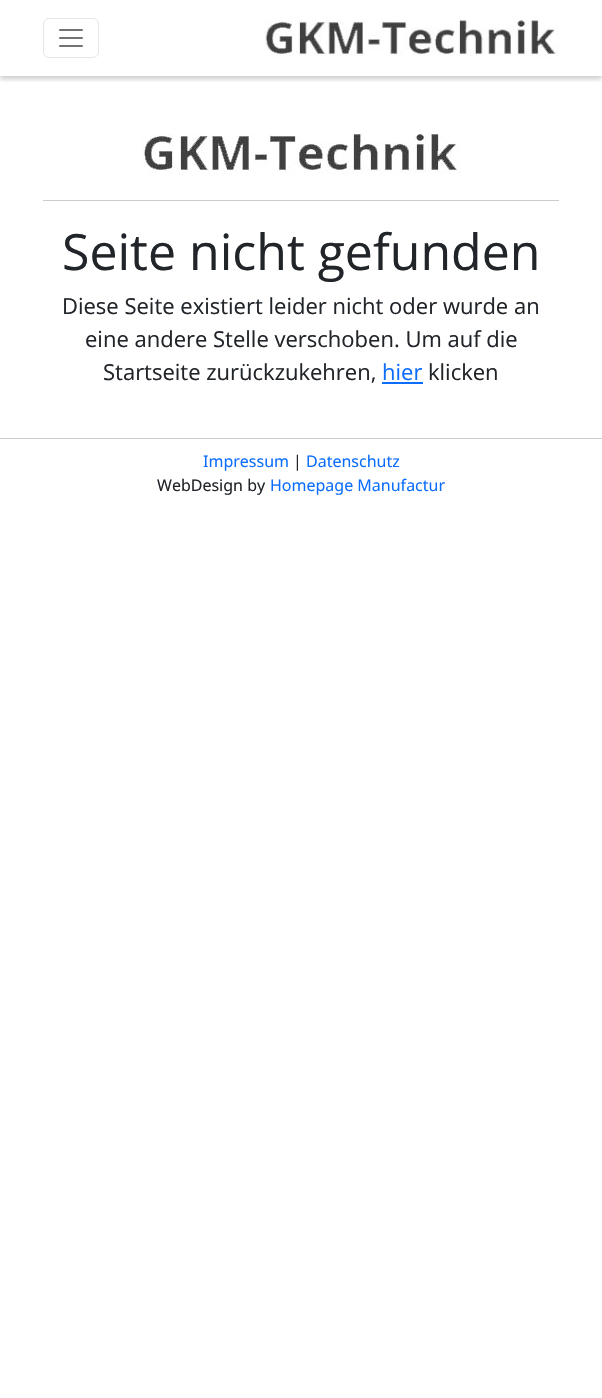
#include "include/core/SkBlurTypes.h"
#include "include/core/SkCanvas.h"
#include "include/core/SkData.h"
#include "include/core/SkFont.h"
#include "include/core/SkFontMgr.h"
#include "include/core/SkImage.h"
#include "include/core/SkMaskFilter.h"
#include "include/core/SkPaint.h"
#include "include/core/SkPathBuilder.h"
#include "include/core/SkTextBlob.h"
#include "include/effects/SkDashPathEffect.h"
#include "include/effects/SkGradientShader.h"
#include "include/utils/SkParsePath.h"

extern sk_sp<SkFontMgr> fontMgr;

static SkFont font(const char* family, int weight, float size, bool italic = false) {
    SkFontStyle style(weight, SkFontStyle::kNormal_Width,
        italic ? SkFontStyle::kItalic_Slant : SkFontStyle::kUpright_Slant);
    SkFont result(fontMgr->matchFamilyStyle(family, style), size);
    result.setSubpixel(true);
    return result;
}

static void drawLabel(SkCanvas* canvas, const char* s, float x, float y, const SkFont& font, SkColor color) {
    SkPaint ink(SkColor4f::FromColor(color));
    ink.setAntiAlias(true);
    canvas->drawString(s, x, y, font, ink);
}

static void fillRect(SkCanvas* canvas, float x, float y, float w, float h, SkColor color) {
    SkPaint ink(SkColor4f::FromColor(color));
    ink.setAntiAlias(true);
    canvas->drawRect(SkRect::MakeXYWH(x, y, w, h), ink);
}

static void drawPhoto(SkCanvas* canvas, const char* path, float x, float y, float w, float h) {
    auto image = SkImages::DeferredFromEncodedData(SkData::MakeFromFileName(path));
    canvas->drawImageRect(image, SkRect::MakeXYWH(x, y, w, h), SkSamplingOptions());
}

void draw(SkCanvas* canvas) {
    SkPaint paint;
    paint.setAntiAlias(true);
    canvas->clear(0xFFFFFFFF);
    canvas->save();
    canvas->clipRect(SkRect::MakeXYWH(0, 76, 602, 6));
    paint.setColor(0x33000000);
    paint.setMaskFilter(SkMaskFilter::MakeBlur(kNormal_SkBlurStyle, 2.5f));
    canvas->drawRect(SkRect::MakeXYWH(0, 3, 602, 76), paint);
    paint.setMaskFilter(nullptr);
    canvas->restore();
    paint.setStroke(true);
    paint.setStrokeWidth(1);
    paint.setColor(0xFFE6E6E6);
    canvas->drawRoundRect(SkRect::MakeXYWH(43.5f, 18.5f, 55, 39), 5.5f, 5.5f, paint);
    drawPhoto(canvas, "assets/img1.png", 59, 29, 24, 18);
    drawPhoto(canvas, "assets/img2.png", 263, 20, 296, 37);
    drawPhoto(canvas, "assets/img3.png", 141, 134, 320, 40);
    fillRect(canvas, 43, 200, 516, 1, 0xFFCCCCCC);
    SkFont font1 = font("Open Sans", 400, 50);
    drawLabel(canvas, "Seite nicht gefunden", 62, 270, font1, 0xFF212529);
    SkFont font2 = font("Open Sans", 400, 22);
    drawLabel(canvas, "Diese Seite existiert leider nicht oder wurde an", 62, 314, font2, 0xFF212529);
    drawLabel(canvas, "eine andere Stelle verschoben. Um auf die", 85, 347, font2, 0xFF212529);
    drawLabel(canvas, "Startseite zurückzukehren,", 103, 380, font2, 0xFF212529);
    drawLabel(canvas, "hier", 382, 380, font2, 0xFF0D6EFD);
    fillRect(canvas, 382, 382, 41, 2, 0xFF0D6EFD);
    drawLabel(canvas, "klicken", 428, 380, font2, 0xFF212529);
    fillRect(canvas, 0, 438, 602, 1, 0xFFCCCCCC);
    SkFont font3 = font("Noto Sans", 400, 16);
    drawLabel(canvas, "Impressum", 203, 467, font3, 0xFF0D6EFD);
    drawLabel(canvas, "|", 293, 467, font3, 0xFF212529);
    drawLabel(canvas, "Datenschutz", 306, 467, font3, 0xFF0D6EFD);
    drawLabel(canvas, "WebDesign by", 157, 491, font3, 0xFF212529);
    drawLabel(canvas, "Homepage Manufactur", 270, 491, font3, 0xFF0D6EFD);
}
